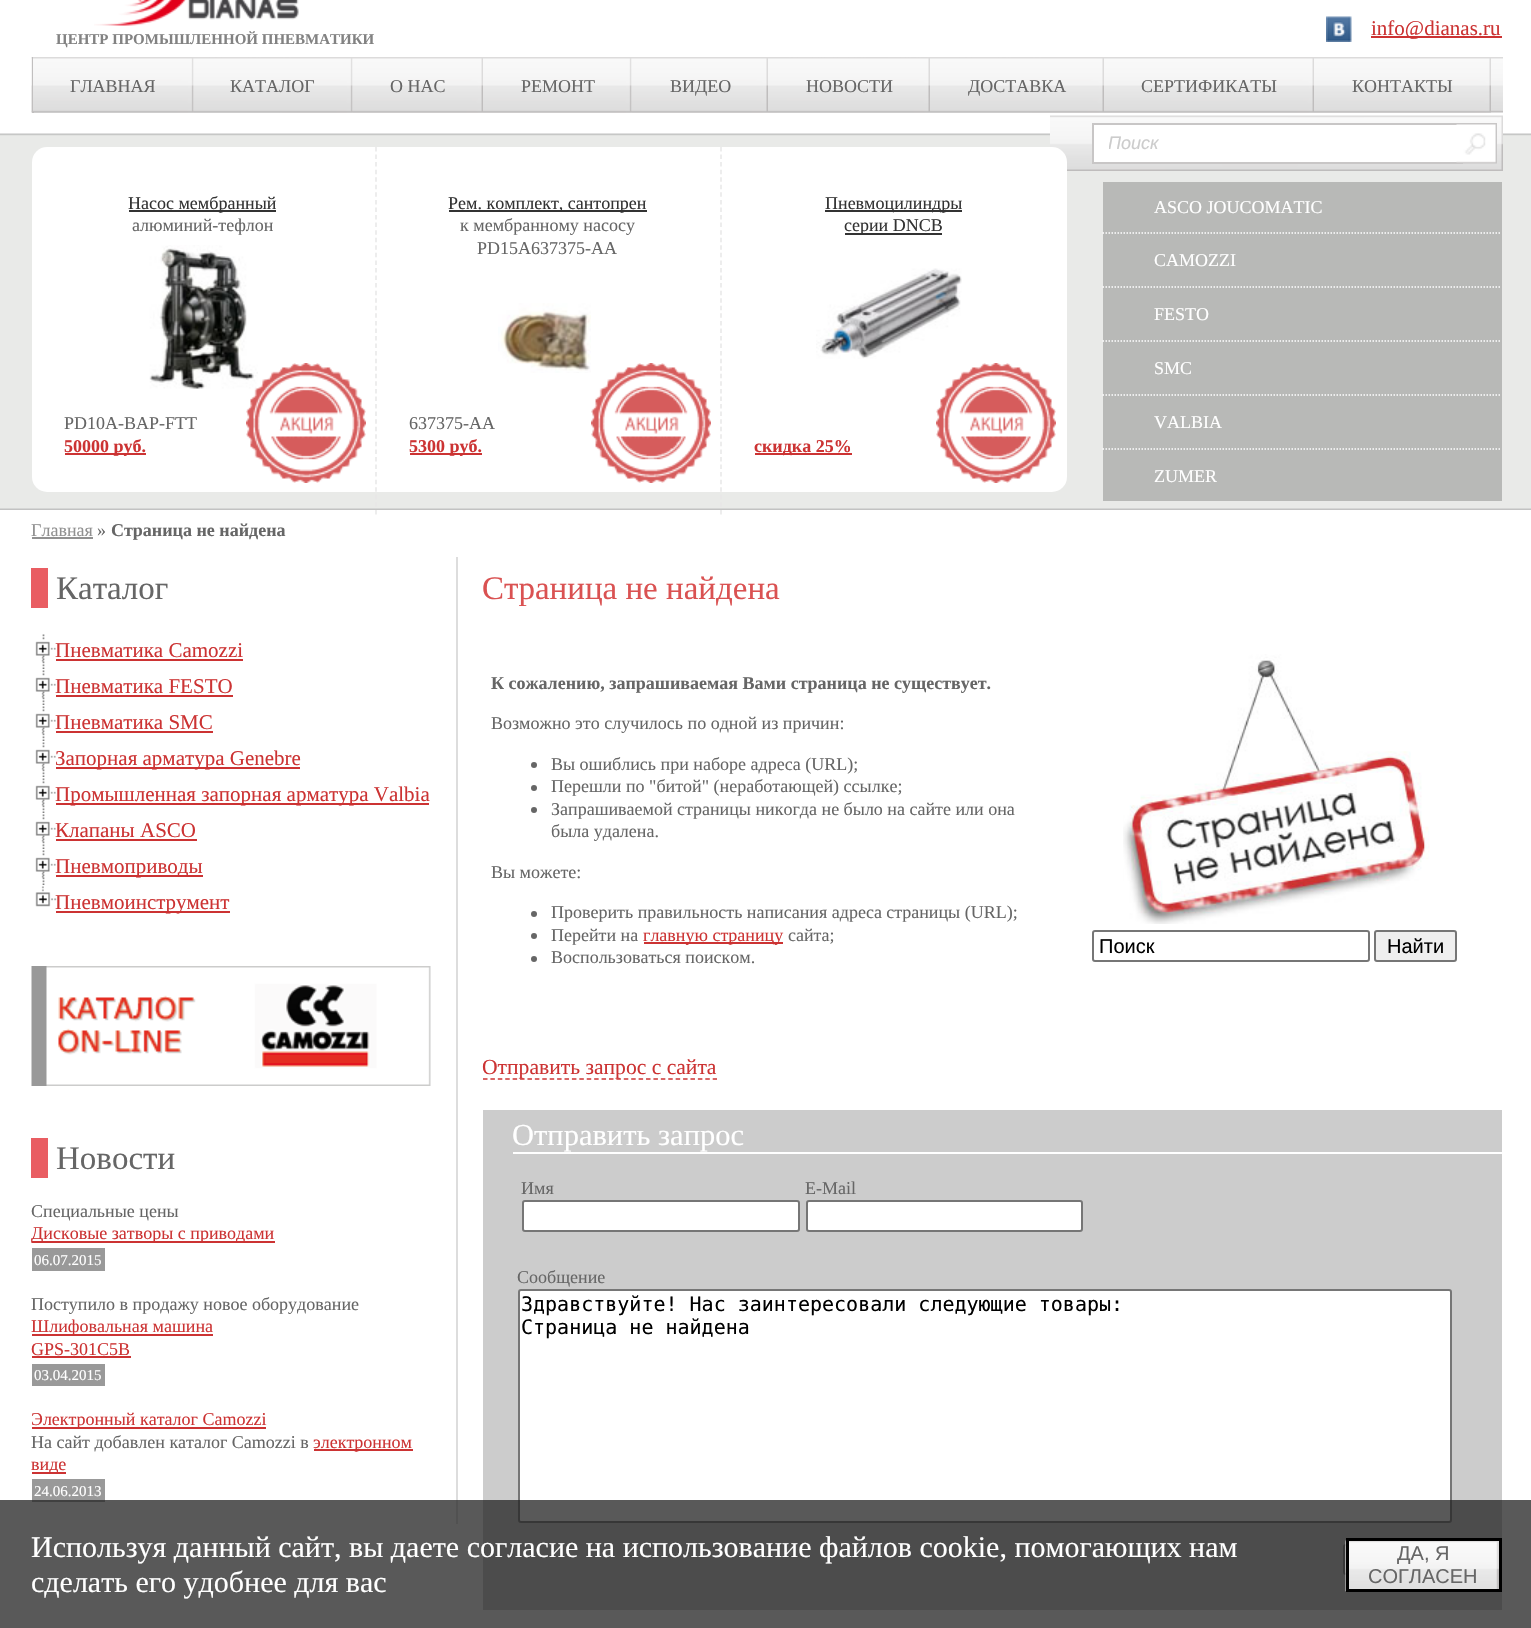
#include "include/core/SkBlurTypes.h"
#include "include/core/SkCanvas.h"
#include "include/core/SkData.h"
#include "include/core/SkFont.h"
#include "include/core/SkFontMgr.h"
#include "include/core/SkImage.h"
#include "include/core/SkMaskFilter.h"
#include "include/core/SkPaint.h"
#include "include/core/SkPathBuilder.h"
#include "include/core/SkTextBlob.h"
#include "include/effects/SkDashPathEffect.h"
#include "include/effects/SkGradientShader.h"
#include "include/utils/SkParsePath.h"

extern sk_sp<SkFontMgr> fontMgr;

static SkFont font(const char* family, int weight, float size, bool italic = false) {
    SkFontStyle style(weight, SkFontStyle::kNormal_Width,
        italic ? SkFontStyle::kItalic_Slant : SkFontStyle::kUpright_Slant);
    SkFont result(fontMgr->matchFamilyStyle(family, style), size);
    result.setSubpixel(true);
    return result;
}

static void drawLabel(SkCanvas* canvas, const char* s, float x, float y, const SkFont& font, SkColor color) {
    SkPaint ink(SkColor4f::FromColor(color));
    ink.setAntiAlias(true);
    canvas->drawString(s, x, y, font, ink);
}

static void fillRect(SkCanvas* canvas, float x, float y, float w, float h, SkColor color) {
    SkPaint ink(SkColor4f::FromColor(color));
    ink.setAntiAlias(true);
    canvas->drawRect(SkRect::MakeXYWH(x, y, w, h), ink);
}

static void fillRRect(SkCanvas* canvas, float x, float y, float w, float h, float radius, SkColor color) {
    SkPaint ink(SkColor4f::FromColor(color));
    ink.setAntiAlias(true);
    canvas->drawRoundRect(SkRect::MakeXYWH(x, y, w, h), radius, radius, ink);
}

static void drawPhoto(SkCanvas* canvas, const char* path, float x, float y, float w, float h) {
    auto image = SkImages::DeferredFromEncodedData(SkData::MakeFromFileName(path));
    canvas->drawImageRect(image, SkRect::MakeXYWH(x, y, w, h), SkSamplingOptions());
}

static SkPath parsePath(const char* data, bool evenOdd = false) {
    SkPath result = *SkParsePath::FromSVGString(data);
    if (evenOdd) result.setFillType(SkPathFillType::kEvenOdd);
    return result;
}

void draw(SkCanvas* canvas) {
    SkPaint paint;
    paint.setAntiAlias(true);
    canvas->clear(0xFFFFFFFF);
    drawPhoto(canvas, "assets/img1.png", 0, 133, 1531, 377);
    drawPhoto(canvas, "assets/img2.png", 94, 0, 205, 26);
    SkFont font1 = font("Liberation Serif", 700, 15);
    drawLabel(canvas, "ЦЕНТР ПРОМЫШЛЕННОЙ ПНЕВМАТИКИ", 56, 44, font1, 0xFF828282);
    drawPhoto(canvas, "assets/img3.png", 1326, 16, 26, 26);
    fillRect(canvas, 1371, 36, 131, 2, 0xFFCC3333);
    SkFont font2 = font("Liberation Serif", 400, 21);
    drawLabel(canvas, "info@dianas.ru", 1371, 35, font2, 0xFFCC3333);
    drawPhoto(canvas, "assets/img4.png", 31, 57, 1472, 56);
    fillRect(canvas, 32, 57, 2, 56, 0xFFC1BFBF);
    drawPhoto(canvas, "assets/img5.png", 33, 57, 161, 56);
    SkFont font3 = font("Liberation Serif", 400, 18);
    drawLabel(canvas, "ГЛАВНАЯ", 70, 92, font3, 0xFF666666);
    drawPhoto(canvas, "assets/img6.png", 193, 58, 160, 55);
    drawLabel(canvas, "КАТАЛОГ", 230, 92, font3, 0xFF666666);
    drawPhoto(canvas, "assets/img7.png", 352, 58, 131, 55);
    drawLabel(canvas, "О НАС", 390, 92, font3, 0xFF666666);
    drawPhoto(canvas, "assets/img8.png", 483, 58, 149, 55);
    drawLabel(canvas, "РЕМОНТ", 521, 92, font3, 0xFF666666);
    drawPhoto(canvas, "assets/img9.png", 631, 58, 137, 55);
    drawLabel(canvas, "ВИДЕО", 670, 92, font3, 0xFF666666);
    drawPhoto(canvas, "assets/img10.png", 768, 58, 162, 55);
    drawLabel(canvas, "НОВОСТИ", 806, 92, font3, 0xFF666666);
    drawPhoto(canvas, "assets/img11.png", 930, 58, 174, 55);
    drawLabel(canvas, "ДОСТАВКА", 968, 92, font3, 0xFF666666);
    drawPhoto(canvas, "assets/img12.png", 1104, 58, 210, 55);
    drawLabel(canvas, "СЕРТИФИКАТЫ", 1141, 92, font3, 0xFF666666);
    drawPhoto(canvas, "assets/img13.png", 1314, 58, 177, 55);
    drawLabel(canvas, "КОНТАКТЫ", 1352, 92, font3, 0xFF666666);
    drawPhoto(canvas, "assets/img14.png", 1050, 115, 453, 56);
    fillRect(canvas, 1094, 125, 363, 37, 0xFFFFFFFF);
    fillRect(canvas, 1092, 123, 371, 2, 0xFFC8C6C6);
    fillRect(canvas, 1092, 162, 371, 2, 0xFFC8C6C6);
    fillRect(canvas, 1092, 123, 2, 41, 0xFFC8C6C6);
    canvas->save();
    canvas->clipRect(SkRect::MakeXYWH(1109, 134, 351, 21));
    SkFont font4 = font("Liberation Sans", 400, 18, true);
    drawLabel(canvas, "Поиск", 1108, 149, font4, 0xFFCCCCCC);
    canvas->restore();
    drawPhoto(canvas, "assets/img15.png", 1456, 123, 41, 41);
    fillRRect(canvas, 32, 147, 1035, 345, 15, 0xFFFFFFFF);
    paint.setStroke(true);
    paint.setStrokeWidth(1.5f);
    paint.setColor(0xFFE8E7E7);
    paint.setPathEffect(SkDashPathEffect::Make({{4.5f, 3.06f}}, 0));
    canvas->drawPath(parsePath("M376 147V514.5"), paint);
    paint.setPathEffect(nullptr);
    fillRect(canvas, 129, 210, 147, 2, 0xFF333333);
    drawLabel(canvas, "Насос мембранный", 128, 209, font3, 0xFF333333);
    drawLabel(canvas, "алюминий-тефлон", 132, 231, font3, 0xFF666666);
    drawPhoto(canvas, "assets/img16.png", 149, 245, 109, 144);
    drawLabel(canvas, "PD10A-BAP-FTT", 64, 429, font3, 0xFF666666);
    fillRect(canvas, 65, 453, 81, 2, 0xFFCC3333);
    SkFont font5 = font("Liberation Serif", 700, 18);
    drawLabel(canvas, "50000 руб.", 64, 452, font5, 0xFFCC3333);
    drawPhoto(canvas, "assets/img17.png", 246, 363, 120, 120);
    paint.setPathEffect(SkDashPathEffect::Make({{4.5f, 3.06f}}, 0));
    canvas->drawPath(parsePath("M721 147V514.5"), paint);
    paint.setPathEffect(nullptr);
    fillRect(canvas, 449, 210, 198, 2, 0xFF333333);
    drawLabel(canvas, "Рем. комплект, сантопрен", 448, 209, font3, 0xFF333333);
    drawLabel(canvas, "к мембранному насосу", 460, 231, font3, 0xFF666666);
    drawLabel(canvas, "PD15A637375-АА", 477, 254, font3, 0xFF666666);
    drawPhoto(canvas, "assets/img18.png", 498, 303, 93, 70);
    drawLabel(canvas, "637375-АА", 409, 429, font3, 0xFF666666);
    fillRect(canvas, 410, 453, 72, 2, 0xFFCC3333);
    drawLabel(canvas, "5300 руб.", 409, 452, font5, 0xFFCC3333);
    drawPhoto(canvas, "assets/img19.png", 591, 363, 120, 120);
    fillRect(canvas, 825, 210, 137, 2, 0xFF333333);
    drawLabel(canvas, "Пневмоцилиндры", 825, 209, font3, 0xFF333333);
    fillRect(canvas, 845, 233, 97, 2, 0xFF333333);
    drawLabel(canvas, "серии DNCB", 844, 231, font3, 0xFF333333);
    drawPhoto(canvas, "assets/img20.png", 816, 268, 146, 91);
    fillRect(canvas, 755, 453, 97, 2, 0xFFCC3333);
    drawLabel(canvas, "скидка 25%", 754, 452, font5, 0xFFCC3333);
    drawPhoto(canvas, "assets/img21.png", 936, 363, 120, 120);
    fillRect(canvas, 1103, 182, 399, 319, 0xFFB8B9B7);
    drawLabel(canvas, "ASCO JOUCOMATIC", 1154, 213, font3, 0xFFFFFFFF);
    paint.setColor(0xFFFFFFFF);
    paint.setPathEffect(SkDashPathEffect::Make({{1.5f, 1.5f}}, 0));
    canvas->drawPath(parsePath("M1102.5 233H1501.5"), paint);
    paint.setPathEffect(nullptr);
    drawLabel(canvas, "CAMOZZI", 1154, 266, font3, 0xFFFFFFFF);
    paint.setPathEffect(SkDashPathEffect::Make({{1.5f, 1.5f}}, 0));
    canvas->drawPath(parsePath("M1102.5 287H1501.5"), paint);
    paint.setPathEffect(nullptr);
    drawLabel(canvas, "FESTO", 1154, 320, font3, 0xFFFFFFFF);
    paint.setPathEffect(SkDashPathEffect::Make({{1.5f, 1.5f}}, 0));
    canvas->drawPath(parsePath("M1102.5 341H1501.5"), paint);
    paint.setPathEffect(nullptr);
    drawLabel(canvas, "SMC", 1154, 374, font3, 0xFFFFFFFF);
    paint.setPathEffect(SkDashPathEffect::Make({{1.5f, 1.5f}}, 0));
    canvas->drawPath(parsePath("M1102.5 395H1501.5"), paint);
    paint.setPathEffect(nullptr);
    drawLabel(canvas, "VALBIA", 1154, 428, font3, 0xFFFFFFFF);
    paint.setPathEffect(SkDashPathEffect::Make({{1.5f, 1.5f}}, 0));
    canvas->drawPath(parsePath("M1102.5 449H1501.5"), paint);
    paint.setPathEffect(nullptr);
    drawLabel(canvas, "ZUMER", 1154, 482, font3, 0xFFFFFFFF);
    drawLabel(canvas, "Главная", 31, 536, font3, 0xFF919191);
    fillRect(canvas, 32, 537, 61, 2, 0xFF919191);
    drawLabel(canvas, "»", 97, 536, font3, 0xFF666666);
    drawLabel(canvas, "Страница не найдена", 111, 536, font5, 0xFF666666);
    fillRect(canvas, 456, 557, 2, 967, 0xFFDDDDDD);
    fillRect(canvas, 31, 568, 17, 40, 0xFFE95D62);
    SkFont font6 = font("Liberation Serif", 400, 33);
    drawLabel(canvas, "Каталог", 56, 599, font6, 0xFF666666);
    drawPhoto(canvas, "assets/img22.png", 42, 634, 3, 35);
    drawPhoto(canvas, "assets/img23.png", 35, 641, 21, 21);
    drawLabel(canvas, "Пневматика Camozzi", 55, 657, font2, 0xFFCC3333);
    fillRect(canvas, 56, 659, 187, 2, 0xFFCC3333);
    drawPhoto(canvas, "assets/img22.png", 42, 670, 3, 35);
    drawPhoto(canvas, "assets/img23.png", 35, 677, 21, 21);
    drawLabel(canvas, "Пневматика FESTO", 55, 693, font2, 0xFFCC3333);
    fillRect(canvas, 56, 695, 177, 2, 0xFFCC3333);
    drawPhoto(canvas, "assets/img22.png", 42, 706, 3, 35);
    drawPhoto(canvas, "assets/img23.png", 35, 713, 21, 21);
    drawLabel(canvas, "Пневматика SMC", 55, 729, font2, 0xFFCC3333);
    fillRect(canvas, 56, 731, 157, 2, 0xFFCC3333);
    drawPhoto(canvas, "assets/img22.png", 42, 742, 3, 35);
    drawPhoto(canvas, "assets/img23.png", 35, 749, 21, 21);
    fillRect(canvas, 56, 767, 244, 2, 0xFFCC3333);
    drawLabel(canvas, "Запорная арматура Genebre", 55, 765, font2, 0xFFCC3333);
    drawPhoto(canvas, "assets/img22.png", 42, 778, 3, 35);
    drawPhoto(canvas, "assets/img23.png", 35, 785, 21, 21);
    fillRect(canvas, 56, 803, 373, 2, 0xFFCC3333);
    drawLabel(canvas, "Промышленная запорная арматура Valbia", 55, 801, font2, 0xFFCC3333);
    drawPhoto(canvas, "assets/img22.png", 42, 814, 3, 35);
    drawPhoto(canvas, "assets/img23.png", 35, 821, 21, 21);
    drawLabel(canvas, "Клапаны ASCO", 55, 837, font2, 0xFFCC3333);
    fillRect(canvas, 56, 839, 141, 2, 0xFFCC3333);
    drawPhoto(canvas, "assets/img22.png", 42, 850, 3, 35);
    drawPhoto(canvas, "assets/img23.png", 35, 857, 21, 21);
    fillRect(canvas, 56, 875, 147, 2, 0xFFCC3333);
    drawLabel(canvas, "Пневмоприводы", 55, 873, font2, 0xFFCC3333);
    drawPhoto(canvas, "assets/img24.png", 35, 886, 22, 21);
    fillRect(canvas, 56, 911, 174, 2, 0xFFCC3333);
    drawLabel(canvas, "Пневмоинструмент", 55, 909, font2, 0xFFCC3333);
    drawPhoto(canvas, "assets/img25.png", 31, 966, 400, 120);
    fillRect(canvas, 31, 1138, 17, 40, 0xFFE95D62);
    drawLabel(canvas, "Новости", 56, 1169, font6, 0xFF666666);
    drawLabel(canvas, "Специальные цены", 31, 1217, font3, 0xFF666666);
    fillRect(canvas, 32, 1241, 243, 2, 0xFFCC3333);
    drawLabel(canvas, "Дисковые затворы с приводами", 31, 1239, font3, 0xFFCC3333);
    fillRect(canvas, 32, 1248, 73, 23, 0xFF999999);
    SkFont font7 = font("Liberation Serif", 400, 15);
    drawLabel(canvas, "06.07.2015", 34, 1265, font7, 0xFFFFFFFF);
    drawLabel(canvas, "Поступило в продажу новое оборудование", 31, 1310, font3, 0xFF666666);
    fillRect(canvas, 32, 1334, 181, 2, 0xFFCC3333);
    drawLabel(canvas, "Шлифовальная машина", 31, 1332, font3, 0xFFCC3333);
    drawLabel(canvas, "GPS-301C5B", 31, 1355, font3, 0xFFCC3333);
    fillRect(canvas, 32, 1356, 99, 2, 0xFFCC3333);
    fillRect(canvas, 32, 1364, 73, 22, 0xFF999999);
    drawLabel(canvas, "03.04.2015", 34, 1380, font7, 0xFFFFFFFF);
    fillRect(canvas, 32, 1427, 234, 2, 0xFFCC3333);
    drawLabel(canvas, "Электронный каталог Camozzi", 31, 1425, font3, 0xFFCC3333);
    drawLabel(canvas, "На сайт добавлен каталог Camozzi в", 31, 1448, font3, 0xFF666666);
    fillRect(canvas, 314, 1449, 99, 2, 0xFFCC3333);
    drawLabel(canvas, "электронном", 313, 1448, font3, 0xFFCC3333);
    fillRect(canvas, 32, 1472, 34, 2, 0xFFCC3333);
    drawLabel(canvas, "виде", 31, 1470, font3, 0xFFCC3333);
    fillRect(canvas, 32, 1479, 73, 23, 0xFF999999);
    drawLabel(canvas, "24.06.2013", 34, 1496, font7, 0xFFFFFFFF);
    drawLabel(canvas, "Страница не найдена", 482, 599, font6, 0xFFDA5252);
    drawLabel(canvas, "К сожалению, запрашиваемая Вами страница не существует.", 491, 689, font5, 0xFF666666);
    drawLabel(canvas, "Возможно это случилось по одной из причин:", 491, 729, font3, 0xFF666666);
    paint.setStroke(false);
    paint.setColor(0xFF666666);
    canvas->drawCircle(534, 765, 3, paint);
    drawLabel(canvas, "Вы ошиблись при наборе адреса (URL);", 551, 770, font3, 0xFF666666);
    canvas->drawCircle(534, 788, 3, paint);
    drawLabel(canvas, "Перешли по \"битой\" (неработающей) ссылке;", 551, 792, font3, 0xFF666666);
    canvas->drawCircle(534, 810, 3, paint);
    drawLabel(canvas, "Запрашиваемой страницы никогда не было на сайте или она", 551, 815, font3, 0xFF666666);
    drawLabel(canvas, "была удалена.", 551, 837, font3, 0xFF666666);
    drawLabel(canvas, "Вы можете:", 491, 878, font3, 0xFF666666);
    canvas->drawCircle(534, 914, 3, paint);
    drawLabel(canvas, "Проверить правильность написания адреса страницы (URL);", 551, 918, font3, 0xFF666666);
    canvas->drawCircle(534, 936, 3, paint);
    drawLabel(canvas, "Перейти на", 551, 941, font3, 0xFF666666);
    fillRect(canvas, 644, 942, 139, 2, 0xFFCC3333);
    drawLabel(canvas, "главную страницу", 643, 941, font3, 0xFFCC3333);
    drawLabel(canvas, "сайта;", 788, 941, font3, 0xFF666666);
    canvas->drawCircle(534, 959, 3, paint);
    drawLabel(canvas, "Воспользоваться поиском.", 551, 963, font3, 0xFF666666);
    drawPhoto(canvas, "assets/img26.png", 1123, 654, 307, 270);
    paint.setStroke(true);
    paint.setStrokeWidth(2);
    paint.setColor(0xFF767676);
    canvas->drawRoundRect(SkRect::MakeXYWH(1093, 931, 276, 30), 2, 2, paint);
    SkFont font8 = font("Liberation Sans", 400, 20);
    drawLabel(canvas, "Поиск", 1099, 953, font8, 0xFF000000);
    paint.setStroke(false);
    paint.setColor(0xFFEFEFEF);
    canvas->drawRoundRect(SkRect::MakeXYWH(1375, 931, 81, 30), 2, 2, paint);
    paint.setStroke(true);
    paint.setColor(0xFF767676);
    canvas->drawRoundRect(SkRect::MakeXYWH(1375, 931, 81, 30), 2, 2, paint);
    drawLabel(canvas, "Найти", 1387, 953, font8, 0xFF000000);
    paint.setStrokeWidth(1.5f);
    paint.setColor(0xFFCC3333);
    paint.setPathEffect(SkDashPathEffect::Make({{4.5f, 2.91f}}, 0));
    canvas->drawPath(parsePath("M483 1079H717"), paint);
    paint.setPathEffect(nullptr);
    SkFont font9 = font("Liberation Serif", 400, 21.6f);
    drawLabel(canvas, "Отправить запрос с сайта", 482, 1074, font9, 0xFFCC3333);
    fillRect(canvas, 483, 1110, 1019, 500, 0xFFCCCCCC);
    fillRect(canvas, 513, 1152, 989, 2, 0xFFFFFFFF);
    SkFont font10 = font("Liberation Serif", 400, 30.5f);
    drawLabel(canvas, "Отправить запрос", 512, 1145, font10, 0xFFFFFFFF);
    drawLabel(canvas, "Имя", 521, 1194, font3, 0xFF666666);
    paint.setStroke(false);
    paint.setColor(0xFFFFFFFF);
    canvas->drawRoundRect(SkRect::MakeXYWH(523, 1201, 276, 30), 2, 2, paint);
    paint.setStroke(true);
    paint.setStrokeWidth(2);
    paint.setColor(0xFF767676);
    canvas->drawRoundRect(SkRect::MakeXYWH(523, 1201, 276, 30), 2, 2, paint);
    drawLabel(canvas, "E-Mail", 805, 1194, font3, 0xFF666666);
    paint.setStroke(false);
    paint.setColor(0xFFFFFFFF);
    canvas->drawRoundRect(SkRect::MakeXYWH(807, 1201, 275, 30), 2, 2, paint);
    paint.setStroke(true);
    paint.setColor(0xFF767676);
    canvas->drawRoundRect(SkRect::MakeXYWH(807, 1201, 275, 30), 2, 2, paint);
    drawLabel(canvas, "Сообщение", 517, 1283, font3, 0xFF666666);
    paint.setStroke(false);
    paint.setColor(0xFFFFFFFF);
    canvas->drawRoundRect(SkRect::MakeXYWH(519, 1290, 932, 232), 2, 2, paint);
    paint.setStroke(true);
    paint.setColor(0xFF767676);
    canvas->drawRoundRect(SkRect::MakeXYWH(519, 1290, 932, 232), 2, 2, paint);
    SkFont font11 = font("DejaVu Sans Mono", 400, 20);
    drawLabel(canvas, "Здравствуйте! Нас заинтересовали следующие товары:", 521, 1311, font11, 0xFF000000);
    drawLabel(canvas, "Страница не найдена", 521, 1334, font11, 0xFF000000);
    paint.setStroke(false);
    paint.setColor(0xFFEFEFEF);
    canvas->drawRoundRect(SkRect::MakeXYWH(1344, 1545, 122, 29), 2, 2, paint);
    paint.setStroke(true);
    paint.setColor(0xFF767676);
    canvas->drawRoundRect(SkRect::MakeXYWH(1344, 1545, 122, 29), 2, 2, paint);
    fillRect(canvas, 0, 1500, 1531, 128, 0xBF212121);
    SkFont font12 = font("Liberation Serif", 400, 30);
    drawLabel(canvas, "Используя данный сайт, вы даете согласие на использование файлов cookie, помогающих нам", 31, 1557, font12, 0xFFFFFFFF);
    drawLabel(canvas, "сделать его удобнее для вас", 31, 1592, font12, 0xFFFFFFFF);
    drawPhoto(canvas, "assets/img27.png", 1345, 1540, 154, 52);
    paint.setStrokeWidth(3);
    paint.setColor(0xFF000000);
    canvas->drawRect(SkRect::MakeXYWH(1347.5f, 1539.5f, 153, 51), paint);
    drawLabel(canvas, "ДА, Я", 1397, 1560, font8, 0xFF666666);
    drawLabel(canvas, "СОГЛАСЕН", 1368, 1583, font8, 0xFF666666);
}
